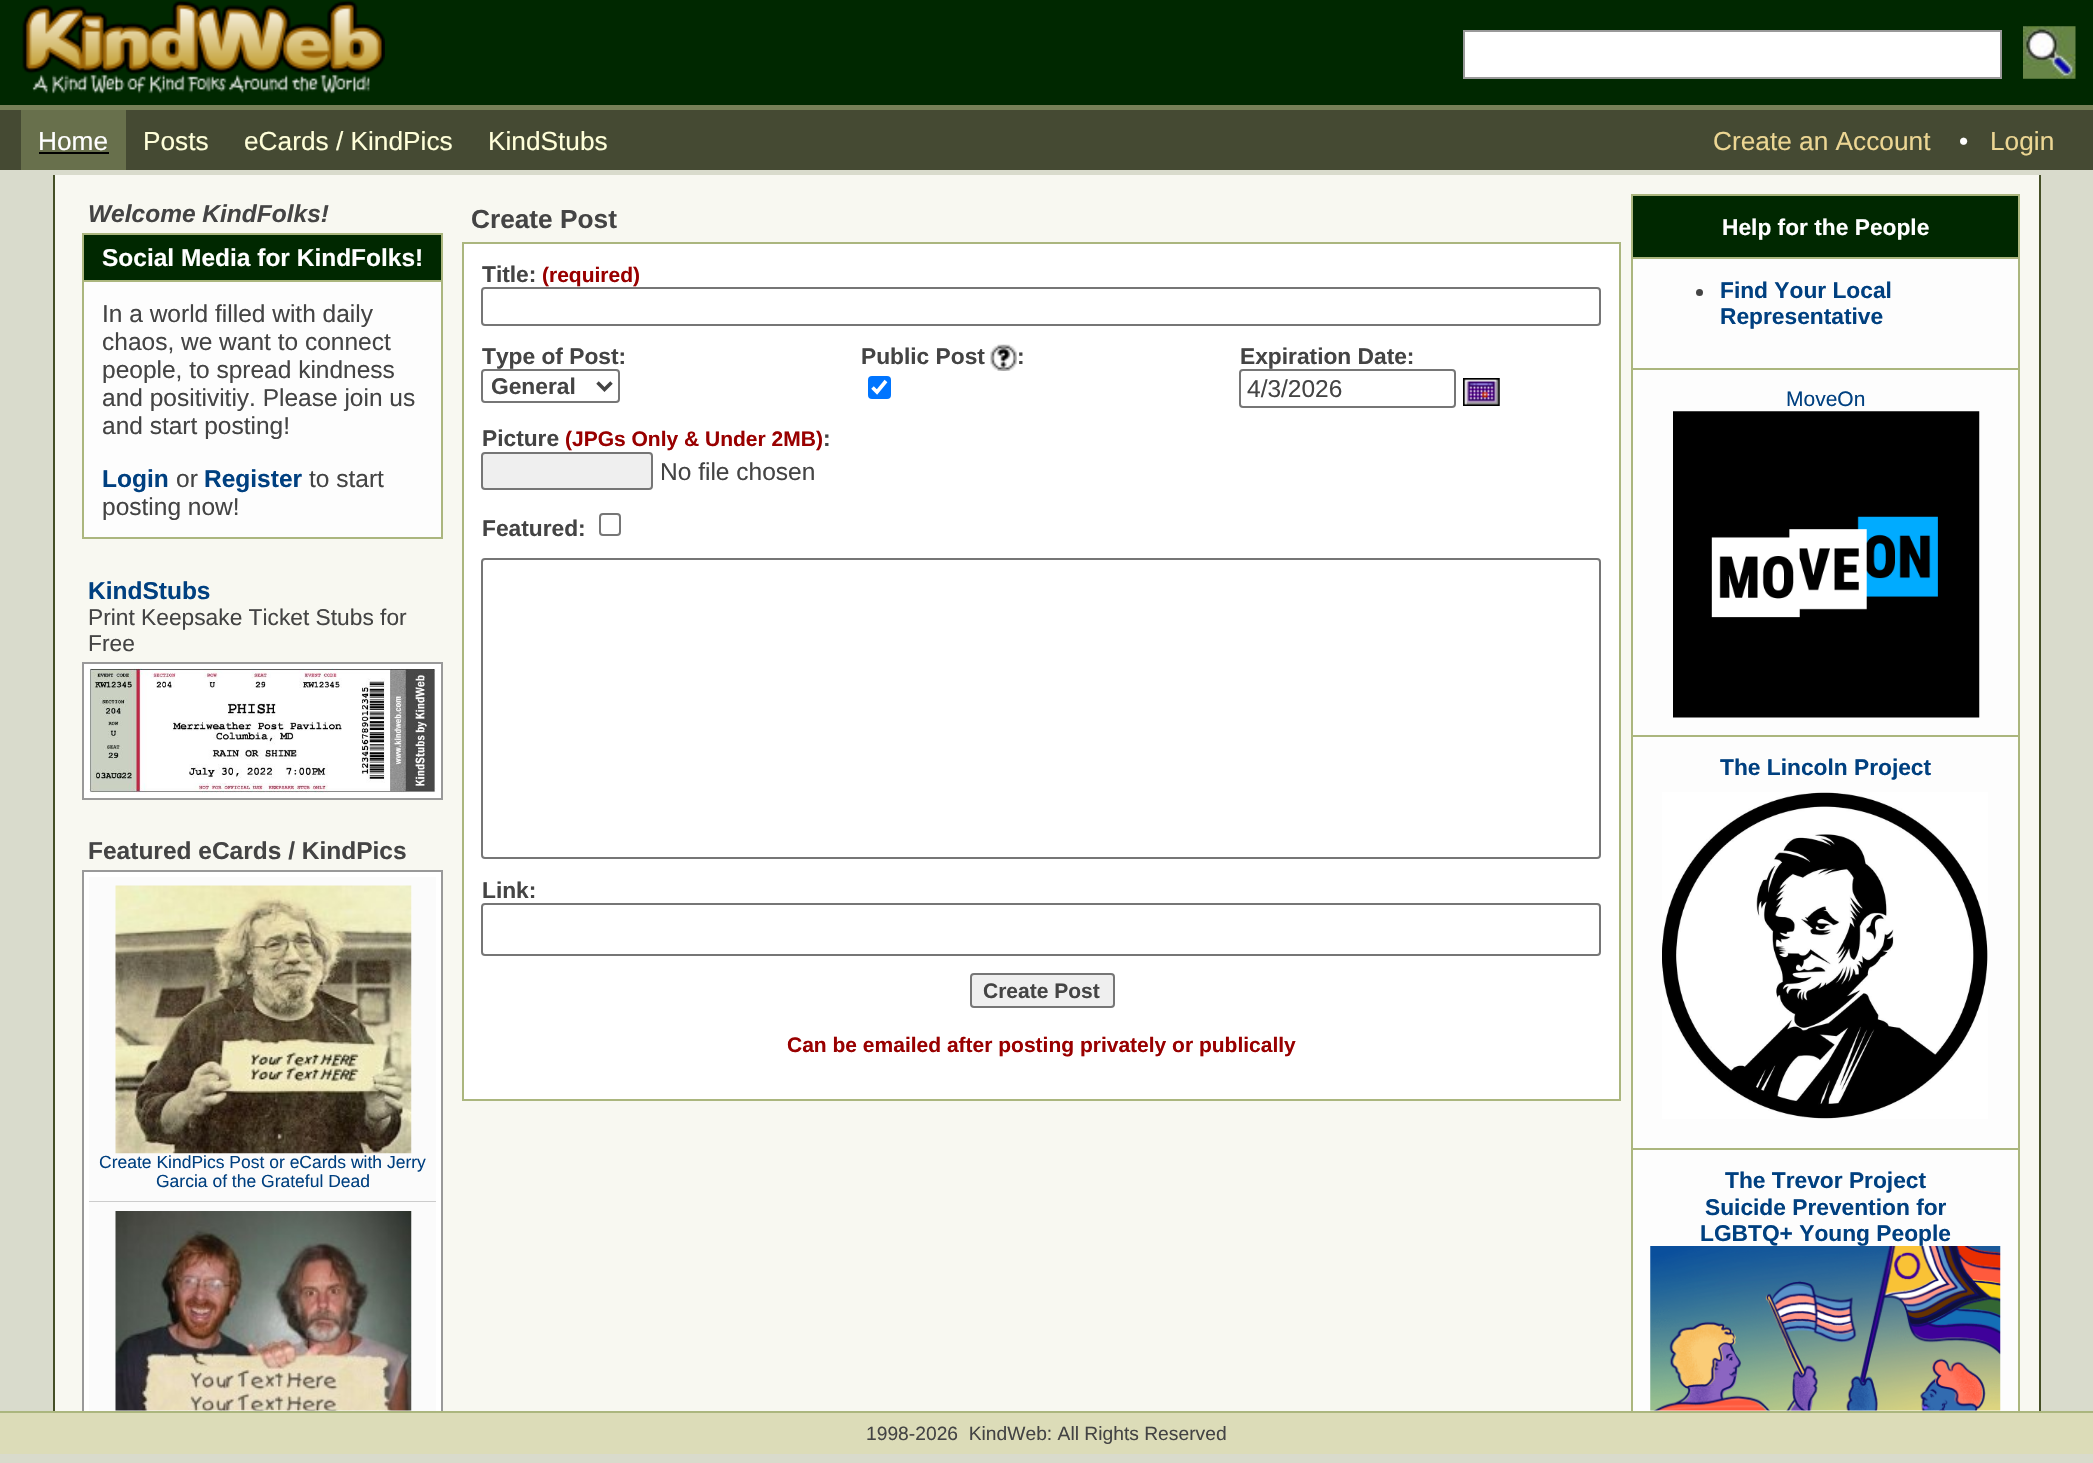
#include "include/core/SkBlurTypes.h"
#include "include/core/SkCanvas.h"
#include "include/core/SkData.h"
#include "include/core/SkFont.h"
#include "include/core/SkFontMgr.h"
#include "include/core/SkImage.h"
#include "include/core/SkMaskFilter.h"
#include "include/core/SkPaint.h"
#include "include/core/SkPathBuilder.h"
#include "include/core/SkTextBlob.h"
#include "include/effects/SkDashPathEffect.h"
#include "include/effects/SkGradientShader.h"
#include "include/utils/SkParsePath.h"

extern sk_sp<SkFontMgr> fontMgr;

static SkFont font(const char* family, int weight, float size, bool italic = false) {
    SkFontStyle style(weight, SkFontStyle::kNormal_Width,
        italic ? SkFontStyle::kItalic_Slant : SkFontStyle::kUpright_Slant);
    SkFont result(fontMgr->matchFamilyStyle(family, style), size);
    result.setSubpixel(true);
    return result;
}

static void drawLabel(SkCanvas* canvas, const char* s, float x, float y, const SkFont& font, SkColor color) {
    SkPaint ink(SkColor4f::FromColor(color));
    ink.setAntiAlias(true);
    canvas->drawString(s, x, y, font, ink);
}

static void fillRect(SkCanvas* canvas, float x, float y, float w, float h, SkColor color) {
    SkPaint ink(SkColor4f::FromColor(color));
    ink.setAntiAlias(true);
    canvas->drawRect(SkRect::MakeXYWH(x, y, w, h), ink);
}

static void fillRRect(SkCanvas* canvas, float x, float y, float w, float h, float radius, SkColor color) {
    SkPaint ink(SkColor4f::FromColor(color));
    ink.setAntiAlias(true);
    canvas->drawRoundRect(SkRect::MakeXYWH(x, y, w, h), radius, radius, ink);
}

static void drawPhoto(SkCanvas* canvas, const char* path, float x, float y, float w, float h) {
    auto image = SkImages::DeferredFromEncodedData(SkData::MakeFromFileName(path));
    canvas->drawImageRect(image, SkRect::MakeXYWH(x, y, w, h), SkSamplingOptions());
}

static SkPath parsePath(const char* data, bool evenOdd = false) {
    SkPath result = *SkParsePath::FromSVGString(data);
    if (evenOdd) result.setFillType(SkPathFillType::kEvenOdd);
    return result;
}

void draw(SkCanvas* canvas) {
    SkPaint paint;
    paint.setAntiAlias(true);
    canvas->clear(0xFFD9DBCC);
    fillRect(canvas, 0, 0, 2093, 105, 0xFF002800);
    drawPhoto(canvas, "assets/img1.png", 22, 0, 363, 94);
    paint.setColor(0xFFFFFFFF);
    canvas->drawRect(SkRect::MakeXYWH(1464, 31, 537, 47), paint);
    paint.setStroke(true);
    paint.setStrokeWidth(2);
    paint.setColor(0xFF999999);
    canvas->drawRect(SkRect::MakeXYWH(1464, 31, 537, 47), paint);
    drawPhoto(canvas, "assets/img2.png", 2023, 26, 53, 53);
    fillRect(canvas, 0, 110, 2093, 60, 0xFF454A33);
    fillRect(canvas, 0, 105, 2093, 5, 0xFF778057);
    fillRect(canvas, 21, 110, 105, 60, 0xFF68704C);
    SkFont font1 = font("Liberation Sans", 400, 26.25f);
    drawLabel(canvas, "Home", 38, 150, font1, 0xFFFFFFFF);
    fillRect(canvas, 39, 152, 70, 2, 0xFF000000);
    drawLabel(canvas, "Posts", 143, 150, font1, 0xFFFFFFD9);
    drawLabel(canvas, "eCards / KindPics", 244, 150, font1, 0xFFFFFFD9);
    drawLabel(canvas, "KindStubs", 488, 150, font1, 0xFFFFFFD9);
    drawLabel(canvas, "Create an Account", 1713, 150, font1, 0xFFECD693);
    drawLabel(canvas, "•", 1959, 150, font1, 0xFFFFFFFF);
    drawLabel(canvas, "Login", 1990, 150, font1, 0xFFECD693);
    fillRect(canvas, 55, 175, 1984, 1236, 0xFFF8F8F1);
    fillRect(canvas, 2039, 175, 2, 1236, 0xFF454F26);
    fillRect(canvas, 53, 175, 2, 1236, 0xFF454F26);
    SkFont font2 = font("Liberation Sans", 700, 24.5f, true);
    drawLabel(canvas, "Welcome KindFolks!", 88, 222, font2, 0xFF444444);
    fillRect(canvas, 84, 282, 357, 255, 0xFFFDFDFD);
    fillRect(canvas, 82, 233, 361, 2, 0xFFABB67E);
    fillRect(canvas, 441, 233, 2, 306, 0xFFABB67E);
    fillRect(canvas, 82, 537, 361, 2, 0xFFABB67E);
    fillRect(canvas, 82, 233, 2, 306, 0xFFABB67E);
    fillRect(canvas, 84, 235, 357, 45, 0xFF002800);
    SkFont font3 = font("Liberation Sans", 700, 24.5f);
    drawLabel(canvas, "Social Media for KindFolks!", 102, 266, font3, 0xFFFFFFFF);
    fillRect(canvas, 82, 280, 361, 2, 0xFFABB67E);
    SkFont font4 = font("Liberation Sans", 400, 24.5f);
    drawLabel(canvas, "In a world filled with daily", 102, 322, font4, 0xFF444444);
    drawLabel(canvas, "chaos, we want to connect", 102, 350, font4, 0xFF444444);
    drawLabel(canvas, "people, to spread kindness", 102, 378, font4, 0xFF444444);
    drawLabel(canvas, "and positivitiy. Please join us", 102, 406, font4, 0xFF444444);
    drawLabel(canvas, "and start posting!", 102, 434, font4, 0xFF444444);
    drawLabel(canvas, "Login", 102, 487, font3, 0xFF004080);
    drawLabel(canvas, "or", 176, 487, font4, 0xFF444444);
    drawLabel(canvas, "Register", 204, 487, font3, 0xFF004080);
    drawLabel(canvas, "to start", 309, 487, font4, 0xFF444444);
    drawLabel(canvas, "posting now!", 102, 515, font4, 0xFF444444);
    drawLabel(canvas, "KindStubs", 88, 599, font3, 0xFF004080);
    SkFont font5 = font("Liberation Sans", 400, 22.75f);
    drawLabel(canvas, "Print Keepsake Ticket Stubs for", 88, 625, font5, 0xFF444444);
    drawLabel(canvas, "Free", 88, 651, font5, 0xFF444444);
    fillRect(canvas, 84, 664, 357, 134, 0xFFFFFFFF);
    fillRect(canvas, 82, 662, 361, 2, 0xFF999999);
    fillRect(canvas, 441, 662, 2, 138, 0xFF999999);
    fillRect(canvas, 82, 798, 361, 2, 0xFF999999);
    fillRect(canvas, 82, 662, 2, 138, 0xFF999999);
    drawPhoto(canvas, "assets/img3.png", 89, 668, 347, 125);
    drawLabel(canvas, "Featured eCards / KindPics", 88, 859, font3, 0xFF444444);
    fillRect(canvas, 84, 872, 357, 539, 0xFFFFFFFF);
    fillRect(canvas, 82, 870, 361, 2, 0xFF999999);
    fillRect(canvas, 441, 870, 2, 541, 0xFF999999);
    fillRect(canvas, 82, 870, 2, 541, 0xFF999999);
    fillRect(canvas, 89, 877, 347, 324, 0xFFFBFBFB);
    fillRect(canvas, 89, 1201, 347, 1, 0xFFCCCCCC);
    drawPhoto(canvas, "assets/img4.png", 115, 885, 297, 269);
    SkFont font6 = font("Liberation Sans", 400, 17.5f);
    drawLabel(canvas, "Create KindPics Post or eCards with Jerry", 99, 1168, font6, 0xFF004080);
    drawLabel(canvas, "Garcia of the Grateful Dead", 156, 1187, font6, 0xFF004080);
    fillRect(canvas, 89, 1202, 347, 209, 0xFFFBFBFB);
    drawPhoto(canvas, "assets/img5.png", 115, 1211, 297, 200);
    SkFont font7 = font("Liberation Sans", 700, 26.25f);
    drawLabel(canvas, "Create Post", 471, 228, font7, 0xFF444444);
    fillRect(canvas, 462, 242, 1159, 2, 0xFFABB67E);
    fillRect(canvas, 1619, 242, 2, 859, 0xFFABB67E);
    fillRect(canvas, 462, 1099, 1159, 2, 0xFFABB67E);
    fillRect(canvas, 462, 242, 2, 859, 0xFFABB67E);
    fillRect(canvas, 464, 244, 1155, 855, 0xFFFFFFFF);
    SkFont font8 = font("Liberation Sans", 700, 22.75f);
    drawLabel(canvas, "Title:", 482, 282, font8, 0xFF444444);
    SkFont font9 = font("Liberation Sans", 700, 21);
    drawLabel(canvas, "(required)", 542, 282, font9, 0xFF990000);
    paint.setColor(0xFF767676);
    canvas->drawRoundRect(SkRect::MakeXYWH(482, 288, 1118, 37), 3, 3, paint);
    drawLabel(canvas, "Type of Post:", 482, 364, font8, 0xFF444444);
    canvas->drawRoundRect(SkRect::MakeXYWH(482, 370, 137, 32), 3, 3, paint);
    paint.setStrokeWidth(3.5f);
    paint.setColor(0xFF444444);
    canvas->drawPath(parsePath("M597.5 382.5L604.5 389.5L611.5 382.5"), paint);
    drawLabel(canvas, "General", 491, 394, font8, 0xFF444444);
    drawLabel(canvas, "Public Post", 861, 364, font8, 0xFF444444);
    drawPhoto(canvas, "assets/img6.png", 990, 344, 27, 27);
    drawLabel(canvas, ":", 1017, 364, font8, 0xFF444444);
    fillRRect(canvas, 868, 376, 23, 23, 4, 0xFF0075FF);
    paint.setStrokeWidth(3.6f);
    paint.setColor(0xFFFFFFFF);
    canvas->drawPath(parsePath("M872.5 387.5L877 392L886 381"), paint);
    drawLabel(canvas, "Expiration Date:", 1240, 364, font8, 0xFF444444);
    paint.setStrokeWidth(2);
    paint.setColor(0xFF767676);
    canvas->drawRoundRect(SkRect::MakeXYWH(1240, 370, 215, 37), 3, 3, paint);
    drawLabel(canvas, "4/3/2026", 1247, 397, font4, 0xFF444444);
    drawPhoto(canvas, "assets/img7.png", 1463, 378, 37, 28);
    drawLabel(canvas, "Picture", 482, 446, font8, 0xFF444444);
    drawLabel(canvas, "(JPGs Only & Under 2MB)", 565, 446, font9, 0xFF990000);
    drawLabel(canvas, ":", 823, 446, font8, 0xFF444444);
    paint.setStroke(false);
    paint.setColor(0xFFEFEFEF);
    canvas->drawRoundRect(SkRect::MakeXYWH(482, 453, 170, 36), 3, 3, paint);
    paint.setStroke(true);
    paint.setColor(0xFF767676);
    canvas->drawRoundRect(SkRect::MakeXYWH(482, 453, 170, 36), 3, 3, paint);
    drawLabel(canvas, "No file chosen", 660, 480, font4, 0xFF444444);
    drawLabel(canvas, "Featured:", 482, 536, font8, 0xFF444444);
    canvas->drawRoundRect(SkRect::MakeXYWH(600, 514, 20, 21), 3, 3, paint);
    canvas->drawRoundRect(SkRect::MakeXYWH(482, 559, 1118, 299), 3, 3, paint);
    drawLabel(canvas, "Link:", 482, 898, font8, 0xFF444444);
    canvas->drawRoundRect(SkRect::MakeXYWH(482, 904, 1118, 51), 3, 3, paint);
    paint.setStroke(false);
    paint.setColor(0xFFEFEFEF);
    canvas->drawRoundRect(SkRect::MakeXYWH(971, 974, 143, 33), 3, 3, paint);
    paint.setStroke(true);
    paint.setColor(0xFF767676);
    canvas->drawRoundRect(SkRect::MakeXYWH(971, 974, 143, 33), 3, 3, paint);
    drawLabel(canvas, "Create Post", 983, 998, font9, 0xFF444444);
    drawLabel(canvas, "Can be emailed after posting privately or publically", 787, 1052, font9, 0xFF990000);
    fillRect(canvas, 1633, 259, 385, 1152, 0xFFFDFDFD);
    fillRect(canvas, 1631, 194, 389, 2, 0xFFABB67E);
    fillRect(canvas, 2018, 194, 2, 1217, 0xFFABB67E);
    fillRect(canvas, 1631, 194, 2, 1217, 0xFFABB67E);
    fillRect(canvas, 1633, 196, 385, 61, 0xFF002800);
    drawLabel(canvas, "Help for the People", 1722, 235, font8, 0xFFFFFFFF);
    fillRect(canvas, 1631, 257, 389, 2, 0xFFABB67E);
    paint.setStroke(false);
    paint.setColor(0xFF444444);
    canvas->drawCircle(1699.5f, 292.5f, 3.5f, paint);
    drawLabel(canvas, "Find Your Local", 1720, 298, font8, 0xFF004080);
    drawLabel(canvas, "Representative", 1720, 324, font8, 0xFF004080);
    fillRect(canvas, 1631, 368, 389, 2, 0xFFABB67E);
    SkFont font10 = font("Liberation Sans", 400, 21);
    drawLabel(canvas, "MoveOn", 1786, 406, font10, 0xFF004080);
    drawPhoto(canvas, "assets/img8.png", 1673, 411, 307, 307);
    fillRect(canvas, 1631, 735, 389, 2, 0xFFABB67E);
    drawLabel(canvas, "The Lincoln Project", 1720, 775, font8, 0xFF004080);
    drawPhoto(canvas, "assets/img9.png", 1662, 792, 326, 327);
    fillRect(canvas, 1631, 1148, 389, 2, 0xFFABB67E);
    drawLabel(canvas, "The Trevor Project", 1725, 1188, font8, 0xFF004080);
    drawLabel(canvas, "Suicide Prevention for", 1705, 1215, font8, 0xFF004080);
    drawLabel(canvas, "LGBTQ+ Young People", 1700, 1241, font8, 0xFF004080);
    drawPhoto(canvas, "assets/img10.png", 1650, 1246, 351, 165);
    fillRect(canvas, 0, 1413, 2093, 41, 0xFFDCDCB8);
    fillRect(canvas, 0, 1411, 2093, 2, 0xFFABB67E);
    SkFont font11 = font("Liberation Sans", 400, 19.25f);
    drawLabel(canvas, "1998-2026  KindWeb: All Rights Reserved", 866, 1440, font11, 0xFF444444);
}
